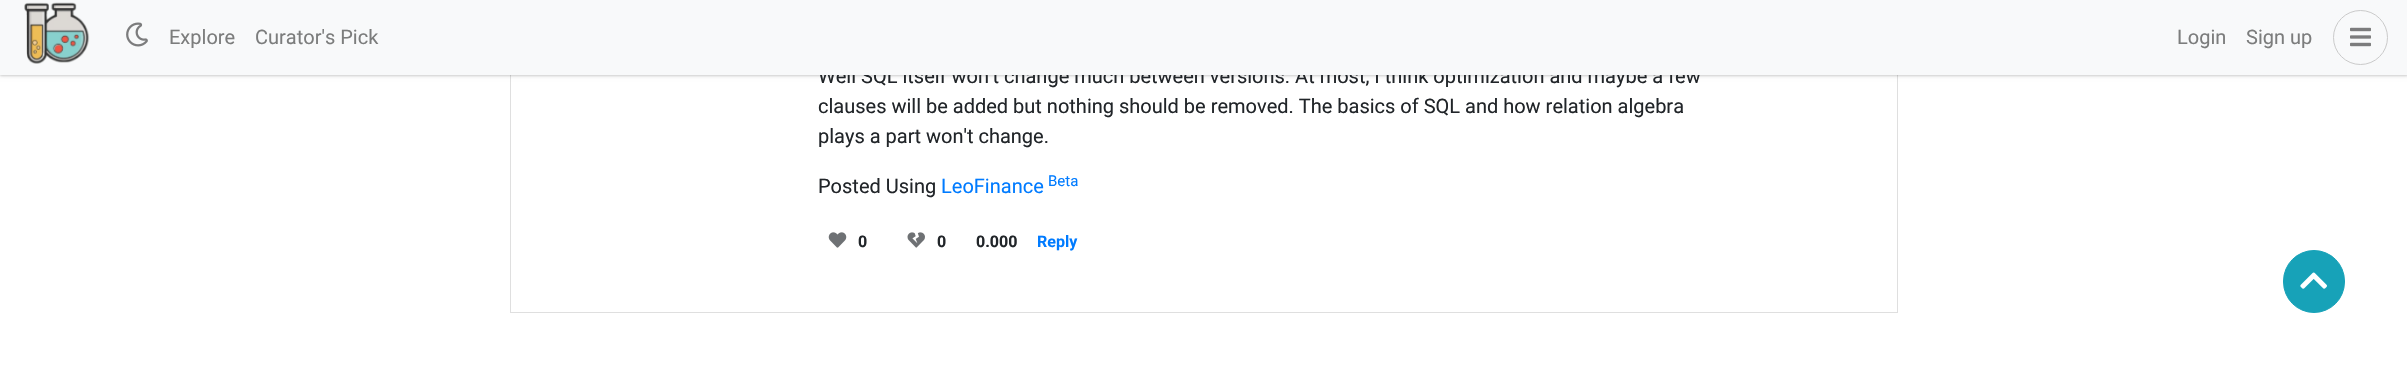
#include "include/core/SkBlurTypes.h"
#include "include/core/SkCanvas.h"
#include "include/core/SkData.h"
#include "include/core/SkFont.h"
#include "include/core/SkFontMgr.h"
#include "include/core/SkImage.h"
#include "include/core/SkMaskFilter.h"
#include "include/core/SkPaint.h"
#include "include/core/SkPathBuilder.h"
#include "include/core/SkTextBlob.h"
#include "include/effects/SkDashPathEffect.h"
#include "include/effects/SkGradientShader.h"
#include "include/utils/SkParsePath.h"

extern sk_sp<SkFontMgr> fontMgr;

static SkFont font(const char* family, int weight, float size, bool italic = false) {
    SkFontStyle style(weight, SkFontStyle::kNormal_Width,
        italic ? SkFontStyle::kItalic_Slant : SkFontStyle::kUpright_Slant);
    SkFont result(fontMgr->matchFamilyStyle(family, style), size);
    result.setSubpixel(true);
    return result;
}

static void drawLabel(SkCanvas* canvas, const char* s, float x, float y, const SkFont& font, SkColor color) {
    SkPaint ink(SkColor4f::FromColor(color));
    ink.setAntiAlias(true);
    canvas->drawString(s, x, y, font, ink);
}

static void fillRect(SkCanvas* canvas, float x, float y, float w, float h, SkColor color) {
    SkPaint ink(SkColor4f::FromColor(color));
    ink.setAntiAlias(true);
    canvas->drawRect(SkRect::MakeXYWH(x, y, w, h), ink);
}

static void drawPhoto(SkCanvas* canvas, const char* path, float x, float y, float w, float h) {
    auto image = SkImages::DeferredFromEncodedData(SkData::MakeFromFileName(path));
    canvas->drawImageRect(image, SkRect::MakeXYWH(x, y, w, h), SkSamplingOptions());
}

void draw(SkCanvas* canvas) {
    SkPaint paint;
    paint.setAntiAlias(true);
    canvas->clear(0xFFFFFFFF);
    paint.setStroke(true);
    paint.setStrokeWidth(1);
    paint.setColor(0xFFDFDFDF);
    canvas->drawRect(SkRect::MakeXYWH(510.5f, -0.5f, 1387, 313), paint);
    paint.setStroke(false);
    paint.setColor(0x24000000);
    paint.setMaskFilter(SkMaskFilter::MakeBlur(kNormal_SkBlurStyle, 1));
    canvas->drawRect(SkRect::MakeXYWH(0, 1, 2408, 75), paint);
    paint.setMaskFilter(nullptr);
    paint.setColor(0x12000000);
    paint.setMaskFilter(SkMaskFilter::MakeBlur(kNormal_SkBlurStyle, 2));
    canvas->drawRect(SkRect::MakeXYWH(0, 1, 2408, 75), paint);
    paint.setMaskFilter(nullptr);
    SkFont font1 = font("Roboto", 400, 20);
    drawLabel(canvas, "Well SQL itself won't change much between versions. At most, I think optimization and maybe a few", 818, 83, font1, 0xFF212529);
    fillRect(canvas, 0, 0, 2407, 75, 0xFFF8F9FA);
    drawPhoto(canvas, "assets/img1.png", 24, 2, 66, 62);
    drawPhoto(canvas, "assets/img2.png", 126, 22, 22, 25);
    drawLabel(canvas, "Explore", 169, 44, font1, 0xFF7C7D7D);
    drawLabel(canvas, "Curator's Pick", 255, 44, font1, 0xFF7C7D7D);
    drawLabel(canvas, "Login", 2177, 44, font1, 0xFF7C7D7D);
    drawLabel(canvas, "Sign up", 2246, 44, font1, 0xFF7C7D7D);
    paint.setStroke(true);
    paint.setColor(0xFFCACACA);
    canvas->drawCircle(2360.5f, 37.5f, 27, paint);
    drawPhoto(canvas, "assets/img3.png", 2350, 27, 21, 20);
    drawLabel(canvas, "clauses will be added but nothing should be removed. The basics of SQL and how relation algebra", 818, 113, font1, 0xFF212529);
    drawLabel(canvas, "plays a part won't change.", 818, 143, font1, 0xFF212529);
    drawLabel(canvas, "Posted Using", 818, 193, font1, 0xFF212529);
    drawLabel(canvas, "LeoFinance", 941, 193, font1, 0xFF007BFF);
    SkFont font2 = font("Roboto", 400, 15);
    drawLabel(canvas, "Beta", 1048, 186, font2, 0xFF007BFF);
    drawPhoto(canvas, "assets/img4.png", 828, 232, 19, 16);
    SkFont font3 = font("Roboto", 700, 16);
    drawLabel(canvas, "0", 858, 247, font3, 0xFF212529);
    drawPhoto(canvas, "assets/img5.png", 907, 232, 18, 16);
    drawLabel(canvas, "0", 937, 247, font3, 0xFF212529);
    drawLabel(canvas, "0.000", 976, 247, font3, 0xFF212529);
    drawLabel(canvas, "Reply", 1037, 247, font3, 0xFF007BFF);
    paint.setStroke(false);
    paint.setColor(0xFF17A2B8);
    canvas->drawRoundRect(SkRect::MakeXYWH(2283.5f, 250.5f, 61, 62), 30.5f, 30.5f, paint);
    paint.setStroke(true);
    canvas->drawRoundRect(SkRect::MakeXYWH(2283.5f, 250.5f, 61, 62), 30.5f, 30.5f, paint);
    drawPhoto(canvas, "assets/img6.png", 2300, 272, 27, 17);
}
